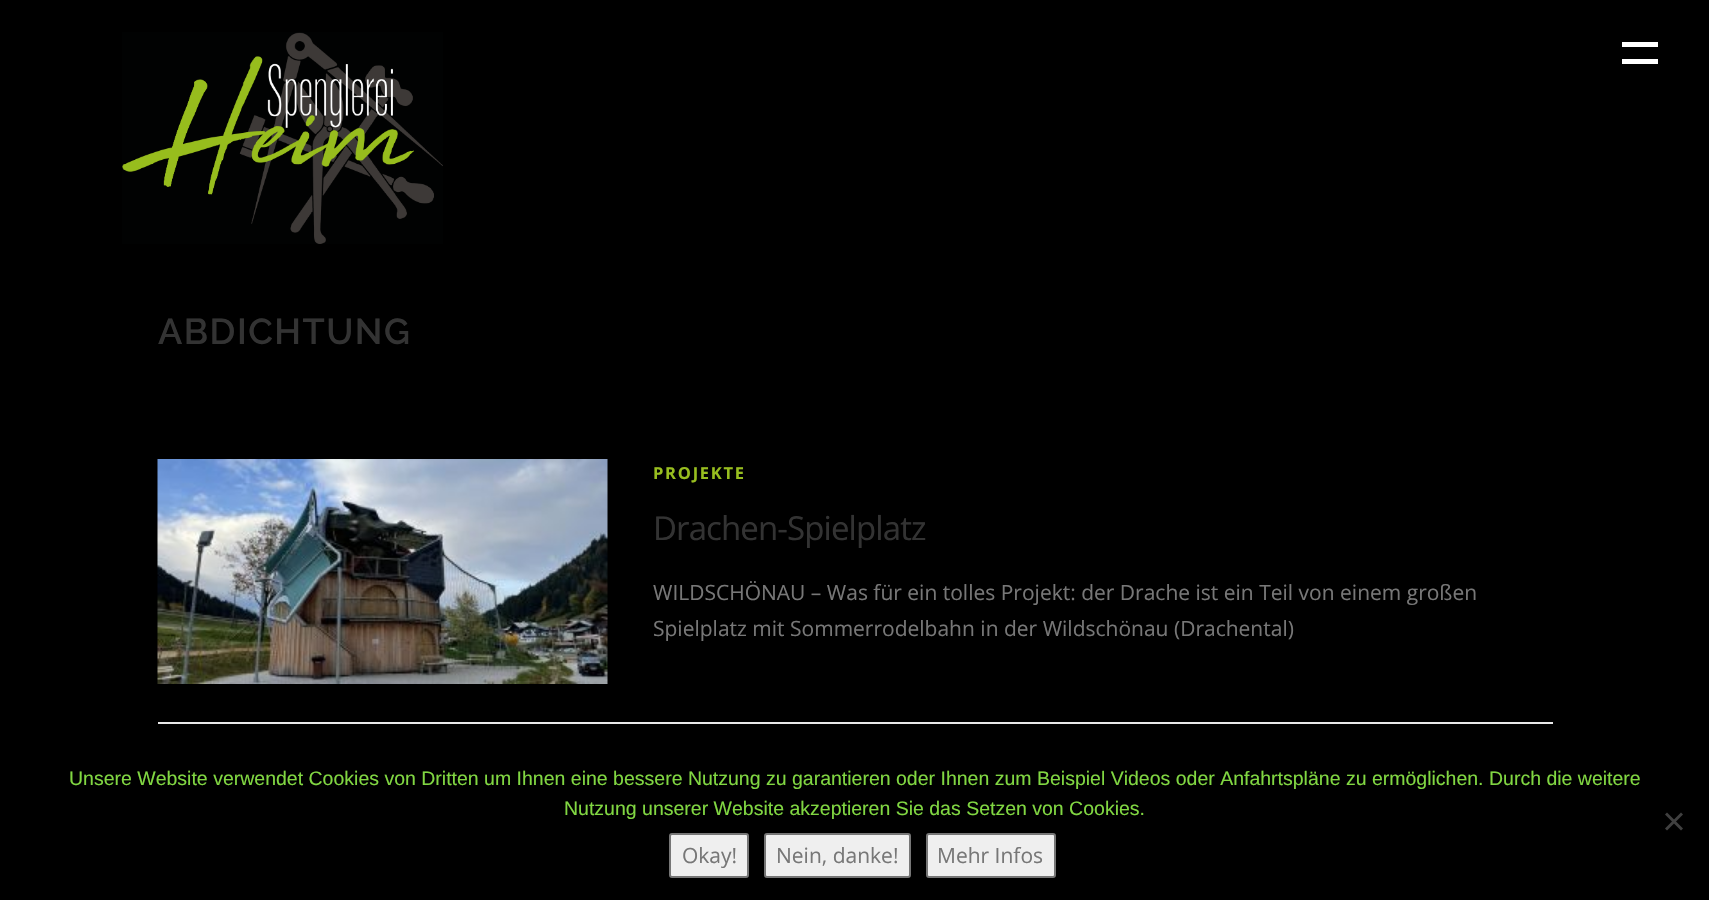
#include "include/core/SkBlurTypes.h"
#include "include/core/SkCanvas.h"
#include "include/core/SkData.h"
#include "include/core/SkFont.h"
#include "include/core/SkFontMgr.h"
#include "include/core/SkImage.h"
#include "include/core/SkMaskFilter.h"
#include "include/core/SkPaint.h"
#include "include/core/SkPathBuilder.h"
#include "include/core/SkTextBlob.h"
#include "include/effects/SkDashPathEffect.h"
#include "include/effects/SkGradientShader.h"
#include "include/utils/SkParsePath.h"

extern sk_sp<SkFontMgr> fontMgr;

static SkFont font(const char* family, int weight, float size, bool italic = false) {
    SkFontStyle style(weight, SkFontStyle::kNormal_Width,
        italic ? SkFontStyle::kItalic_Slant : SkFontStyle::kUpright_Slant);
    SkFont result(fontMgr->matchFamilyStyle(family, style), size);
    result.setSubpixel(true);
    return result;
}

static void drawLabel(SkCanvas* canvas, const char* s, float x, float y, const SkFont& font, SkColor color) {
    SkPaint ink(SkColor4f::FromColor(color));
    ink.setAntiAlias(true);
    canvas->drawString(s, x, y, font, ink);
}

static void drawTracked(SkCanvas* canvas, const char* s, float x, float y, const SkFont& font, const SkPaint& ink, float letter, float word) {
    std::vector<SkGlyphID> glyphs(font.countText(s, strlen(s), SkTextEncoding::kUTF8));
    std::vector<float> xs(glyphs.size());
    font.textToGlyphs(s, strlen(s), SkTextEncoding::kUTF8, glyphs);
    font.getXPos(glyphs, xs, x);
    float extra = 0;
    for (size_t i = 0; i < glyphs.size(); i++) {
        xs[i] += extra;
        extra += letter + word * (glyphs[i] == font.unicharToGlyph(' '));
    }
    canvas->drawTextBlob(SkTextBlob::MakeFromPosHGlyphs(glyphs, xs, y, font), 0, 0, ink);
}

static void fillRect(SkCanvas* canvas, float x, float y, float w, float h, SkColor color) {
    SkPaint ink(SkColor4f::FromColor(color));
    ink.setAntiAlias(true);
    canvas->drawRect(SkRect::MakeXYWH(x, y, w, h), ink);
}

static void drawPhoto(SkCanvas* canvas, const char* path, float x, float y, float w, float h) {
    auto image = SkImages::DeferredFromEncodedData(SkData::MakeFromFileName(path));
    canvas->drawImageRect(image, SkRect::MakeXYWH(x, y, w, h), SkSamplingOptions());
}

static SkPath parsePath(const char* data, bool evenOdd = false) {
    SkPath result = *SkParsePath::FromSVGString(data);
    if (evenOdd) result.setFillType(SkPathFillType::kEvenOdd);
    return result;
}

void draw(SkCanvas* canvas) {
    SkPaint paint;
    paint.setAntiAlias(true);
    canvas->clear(0xFF000000);
    drawPhoto(canvas, "assets/img1.png", 122, 32, 321, 212);
    fillRect(canvas, 1622, 42, 36, 5, 0xFFFFFFFF);
    fillRect(canvas, 1622, 59, 36, 5, 0xFFFFFFFF);
    SkFont font1 = font("Raleway", 600, 36);
    paint.setColor(0xFF333333);
    drawTracked(canvas, "ABDICHTUNG", 158, 344, font1, paint, 1.5f, 0);
    drawPhoto(canvas, "assets/img2.png", 157, 459, 451, 225);
    SkFont font2 = font("Open Sans", 700, 16.5f);
    paint.setColor(0xFF98BE1F);
    drawTracked(canvas, "PROJEKTE", 653, 479, font2, paint, 1.75f, 0);
    SkFont font3 = font("Open Sans", 400, 33);
    paint.setColor(0xFF333333);
    drawTracked(canvas, "Drachen-Spielplatz", 653, 540, font3, paint, -0.9f, 0);
    SkFont font4 = font("Open Sans", 400, 21);
    drawLabel(canvas, "WILDSCHÖNAU – Was für ein tolles Projekt: der Drache ist ein Teil von einem großen", 653, 600, font4, 0xFF777777);
    drawLabel(canvas, "Spielplatz mit Sommerrodelbahn in der Wildschönau (Drachental)", 653, 636, font4, 0xFF777777);
    fillRect(canvas, 158, 722, 1395, 2, 0xFFE9E9E9);
    SkFont font5 = font("Liberation Sans", 400, 19.5f);
    drawLabel(canvas, "Unsere Website verwendet Cookies von Dritten um Ihnen eine bessere Nutzung zu garantieren oder Ihnen zum Beispiel Videos oder Anfahrtspläne zu ermöglichen. Durch die weitere", 69, 785, font5, 0xFF81D742);
    drawLabel(canvas, "Nutzung unserer Website akzeptieren Sie das Setzen von Cookies.", 564, 815, font5, 0xFF81D742);
    paint.setColor(0xFF404040);
    canvas->drawPath(parsePath("M1681 812.5L1683 814.5L1667 830.5L1665 828.5Z"), paint);
    canvas->drawPath(parsePath("M1665 814.5L1667 812.5L1683 828.5L1681 830.5Z"), paint);
    paint.setColor(0xFFEFEFEF);
    canvas->drawRoundRect(SkRect::MakeXYWH(670, 834, 78, 43), 2, 2, paint);
    paint.setStroke(true);
    paint.setStrokeWidth(2);
    paint.setColor(0xFF767676);
    canvas->drawRoundRect(SkRect::MakeXYWH(670, 834, 78, 43), 2, 2, paint);
    drawLabel(canvas, "Okay!", 682, 863, font4, 0xFF777777);
    paint.setStroke(false);
    paint.setColor(0xFFEFEFEF);
    canvas->drawRoundRect(SkRect::MakeXYWH(765, 834, 145, 43), 2, 2, paint);
    paint.setStroke(true);
    paint.setColor(0xFF767676);
    canvas->drawRoundRect(SkRect::MakeXYWH(765, 834, 145, 43), 2, 2, paint);
    drawLabel(canvas, "Nein, danke!", 776, 863, font4, 0xFF777777);
    paint.setStroke(false);
    paint.setColor(0xFFEFEFEF);
    canvas->drawRoundRect(SkRect::MakeXYWH(927, 834, 128, 43), 2, 2, paint);
    paint.setStroke(true);
    paint.setColor(0xFF767676);
    canvas->drawRoundRect(SkRect::MakeXYWH(927, 834, 128, 43), 2, 2, paint);
    drawLabel(canvas, "Mehr Infos", 937, 863, font4, 0xFF777777);
}
